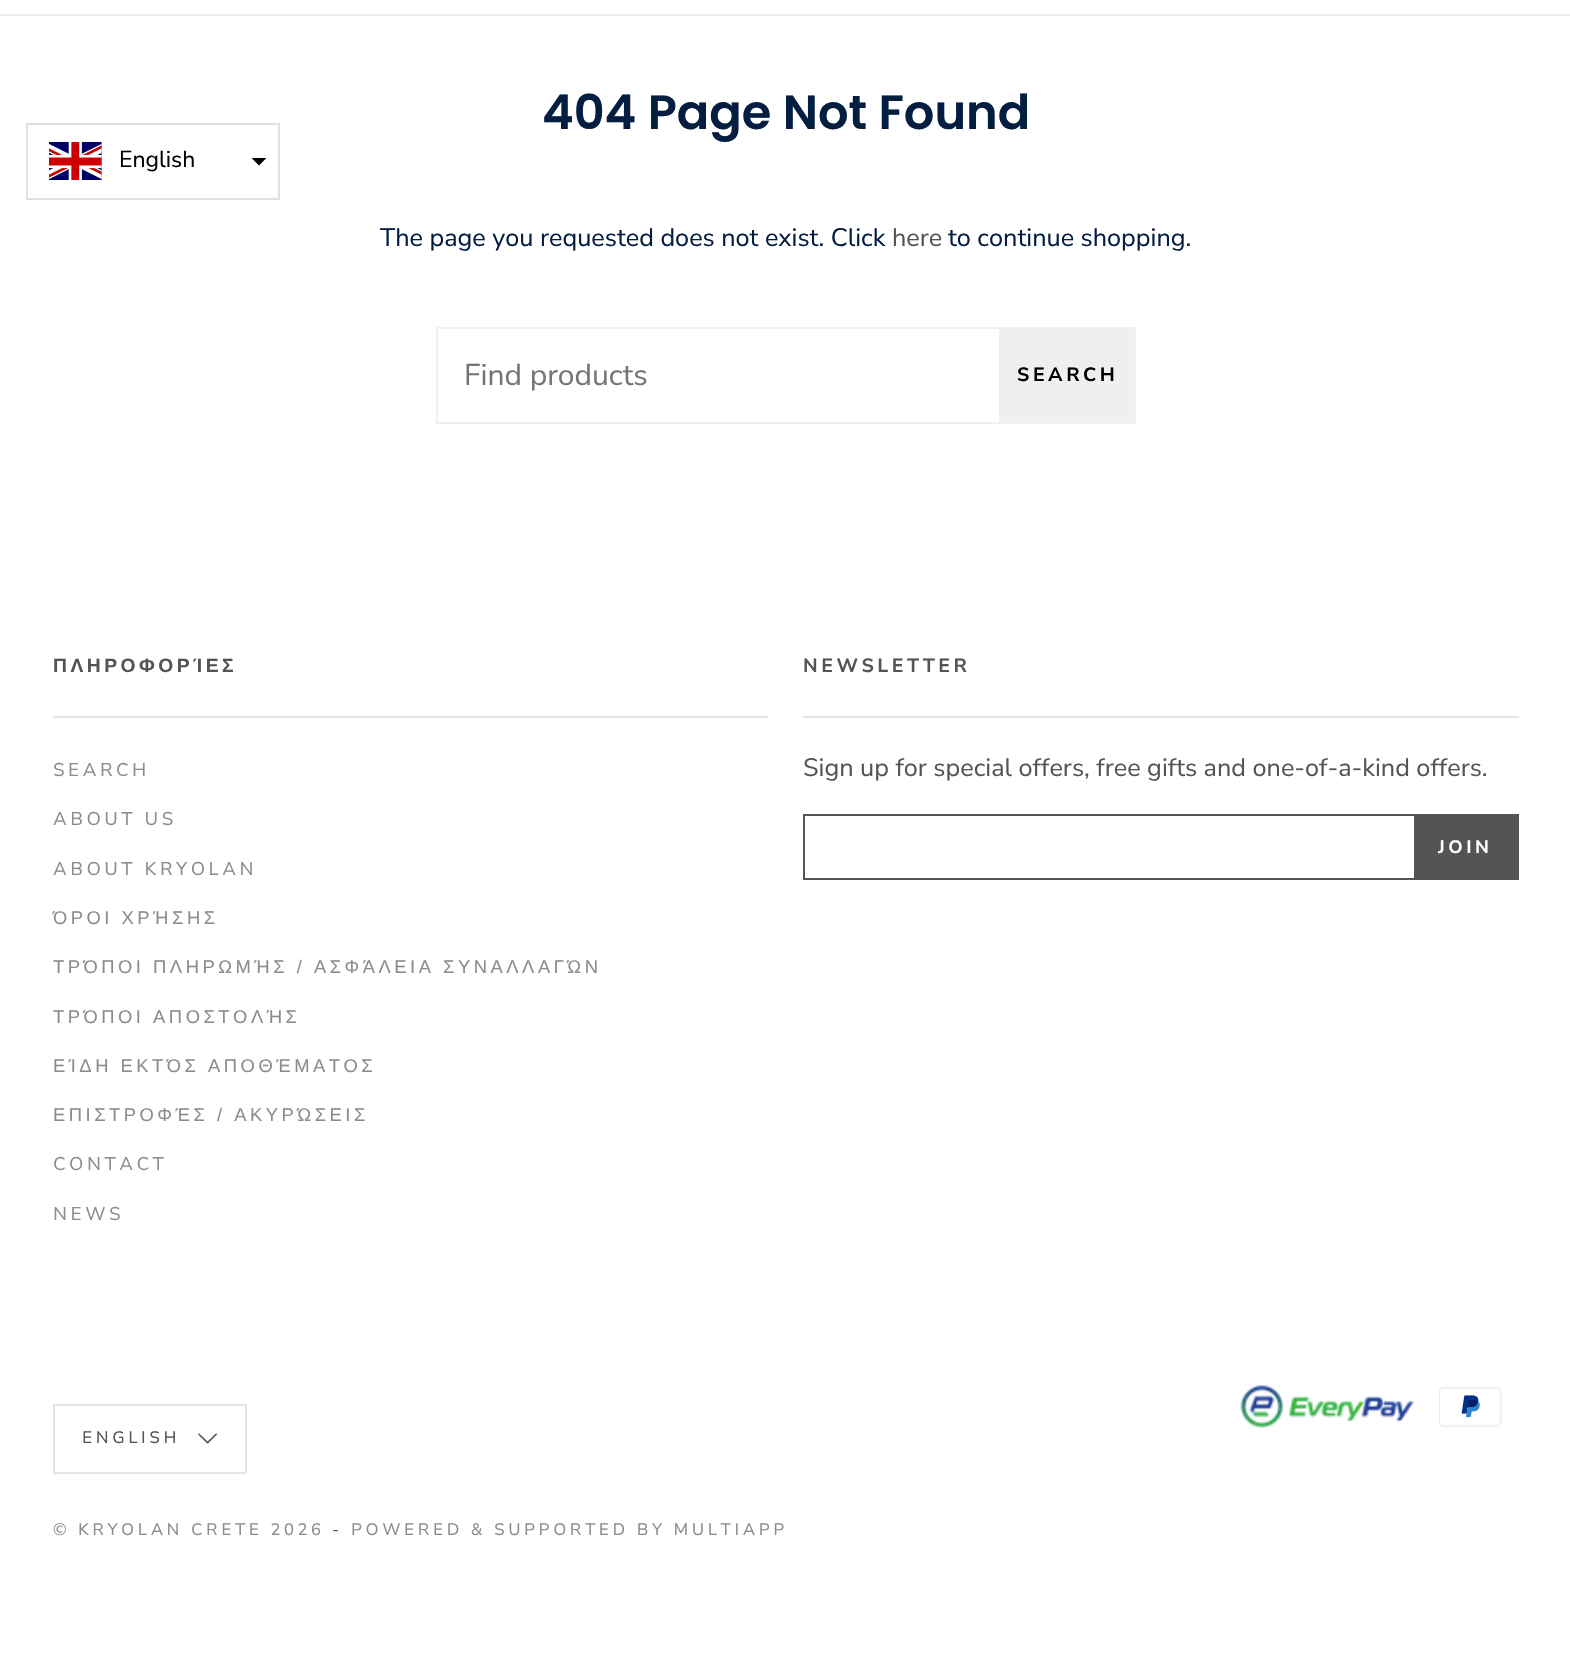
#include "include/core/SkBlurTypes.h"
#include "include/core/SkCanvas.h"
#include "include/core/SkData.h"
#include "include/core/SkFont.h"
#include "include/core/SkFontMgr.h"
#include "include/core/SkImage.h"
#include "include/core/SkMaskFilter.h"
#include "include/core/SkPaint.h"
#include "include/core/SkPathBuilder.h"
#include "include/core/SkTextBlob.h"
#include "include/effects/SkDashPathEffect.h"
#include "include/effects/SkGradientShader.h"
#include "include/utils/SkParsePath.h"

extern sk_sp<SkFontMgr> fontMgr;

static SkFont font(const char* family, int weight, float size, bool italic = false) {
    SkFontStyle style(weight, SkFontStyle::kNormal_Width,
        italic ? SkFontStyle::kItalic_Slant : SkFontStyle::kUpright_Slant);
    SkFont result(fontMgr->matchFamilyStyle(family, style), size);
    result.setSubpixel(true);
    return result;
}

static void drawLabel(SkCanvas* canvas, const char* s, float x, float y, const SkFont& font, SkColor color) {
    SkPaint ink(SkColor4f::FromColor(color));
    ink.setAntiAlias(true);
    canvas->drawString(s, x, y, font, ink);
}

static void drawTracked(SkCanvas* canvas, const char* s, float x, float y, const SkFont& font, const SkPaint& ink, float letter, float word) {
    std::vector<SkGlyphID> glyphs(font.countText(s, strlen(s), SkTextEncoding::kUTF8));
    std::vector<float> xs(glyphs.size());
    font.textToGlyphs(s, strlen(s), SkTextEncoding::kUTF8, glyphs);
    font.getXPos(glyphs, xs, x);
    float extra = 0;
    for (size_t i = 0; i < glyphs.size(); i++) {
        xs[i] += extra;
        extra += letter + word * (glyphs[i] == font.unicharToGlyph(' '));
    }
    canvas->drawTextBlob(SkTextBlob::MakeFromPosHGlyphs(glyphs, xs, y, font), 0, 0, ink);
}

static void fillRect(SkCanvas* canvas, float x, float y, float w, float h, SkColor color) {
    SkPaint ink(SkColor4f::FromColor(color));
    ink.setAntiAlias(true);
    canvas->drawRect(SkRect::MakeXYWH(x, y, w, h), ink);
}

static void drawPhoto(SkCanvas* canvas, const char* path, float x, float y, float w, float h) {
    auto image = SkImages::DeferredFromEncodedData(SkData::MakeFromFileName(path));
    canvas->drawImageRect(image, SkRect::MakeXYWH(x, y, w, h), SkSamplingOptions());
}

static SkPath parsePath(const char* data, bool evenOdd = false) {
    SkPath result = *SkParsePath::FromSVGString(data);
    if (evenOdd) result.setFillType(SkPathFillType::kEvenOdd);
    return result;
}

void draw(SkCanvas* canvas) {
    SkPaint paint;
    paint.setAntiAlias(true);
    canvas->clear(0xFFFFFFFF);
    paint.setStroke(true);
    paint.setStrokeWidth(2);
    paint.setColor(0xFFE0E0E0);
    canvas->drawRect(SkRect::MakeXYWH(27, 124, 252, 75), paint);
    drawPhoto(canvas, "assets/img1.png", 49, 142, 53, 38);
    SkFont font1 = font("Nunito Sans", 400, 23);
    drawLabel(canvas, "English", 119, 167, font1, 0xFF000000);
    canvas->save();
    canvas->clipRect(SkRect::MakeXYWH(250, 158, 18, 8));
    paint.setStroke(false);
    paint.setColor(0xFF000000);
    canvas->drawPath(parsePath("M268 156.5L259 165.5L250 156.5Z", true), paint);
    canvas->restore();
    fillRect(canvas, 0, 14, 1570, 2, 0xFFF0F0F0);
    SkFont font2 = font("Poppins", 600, 47.9f);
    drawLabel(canvas, "404 Page Not Found", 542, 129, font2, 0xFF041E42);
    SkFont font3 = font("Nunito Sans", 400, 25.25f);
    drawLabel(canvas, "The page you requested does not exist. Click", 380, 246, font3, 0xFF041E42);
    drawLabel(canvas, "here", 892, 246, font3, 0xFF545454);
    drawLabel(canvas, "to continue shopping.", 948, 246, font3, 0xFF041E42);
    paint.setStroke(true);
    paint.setColor(0xFFF0F0F0);
    canvas->drawRect(SkRect::MakeXYWH(437, 328, 698, 95), paint);
    SkFont font4 = font("Nunito Sans", 400, 30);
    drawLabel(canvas, "Find products", 464, 385, font4, 0xFF757575);
    fillRect(canvas, 999, 329, 135, 93, 0xFFEFEFEF);
    SkFont font5 = font("Nunito Sans", 700, 19.25f);
    paint.setStroke(false);
    paint.setColor(0xFF000000);
    drawTracked(canvas, "SEARCH", 1017, 381, font5, paint, 3.5f, 0);
    SkFont font6 = font("Liberation Sans", 700, 19.25f);
    paint.setColor(0xFF545454);
    drawTracked(canvas, "ΠΛΗΡΟΦΟΡΊΕΣ", 53, 672, font6, paint, 3.5f, 0);
    fillRect(canvas, 53, 716, 715, 2, 0xFFE6E6E6);
    SkFont font7 = font("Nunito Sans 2", 400, 18.4f);
    paint.setColor(0xFF8A8D8F);
    drawTracked(canvas, "SEARCH", 53, 776, font7, paint, 3.5f, 0);
    drawTracked(canvas, "ABOUT US", 53, 825, font7, paint, 3.5f, 0);
    drawTracked(canvas, "ABOUT KRYOLAN", 53, 875, font7, paint, 3.5f, 0);
    SkFont font8 = font("Liberation Sans", 400, 18.4f);
    drawTracked(canvas, "ΌΡΟΙ ΧΡΉΣΗΣ", 53, 924, font8, paint, 3.5f, 0);
    drawTracked(canvas, "ΤΡΌΠΟΙ ΠΛΗΡΩΜΉΣ / ΑΣΦΆΛΕΙΑ ΣΥΝΑΛΛΑΓΏΝ", 53, 973, font8, paint, 3.5f, 0);
    drawTracked(canvas, "ΤΡΌΠΟΙ ΑΠΟΣΤΟΛΉΣ", 53, 1023, font8, paint, 3.5f, 0);
    drawTracked(canvas, "ΕΊΔΗ ΕΚΤΌΣ ΑΠΟΘΈΜΑΤΟΣ", 53, 1072, font8, paint, 3.5f, 0);
    drawTracked(canvas, "ΕΠΙΣΤΡΟΦΈΣ / ΑΚΥΡΏΣΕΙΣ", 53, 1121, font8, paint, 3.5f, 0);
    drawTracked(canvas, "CONTACT", 53, 1170, font7, paint, 3.5f, 0);
    drawTracked(canvas, "NEWS", 53, 1220, font7, paint, 3.5f, 0);
    paint.setColor(0xFF545454);
    drawTracked(canvas, "NEWSLETTER", 803, 672, font5, paint, 3.5f, 0);
    fillRect(canvas, 803, 716, 716, 2, 0xFFE6E6E6);
    drawLabel(canvas, "Sign up for special offers, free gifts and one-of-a-kind offers.", 803, 776, font3, 0xFF545454);
    paint.setStroke(true);
    canvas->drawRect(SkRect::MakeXYWH(804, 815, 714, 64), paint);
    fillRect(canvas, 1414, 816, 103, 62, 0xFF545454);
    SkFont font9 = font("Nunito Sans 2", 700, 18);
    paint.setStroke(false);
    paint.setColor(0xFFFFFFFF);
    drawTracked(canvas, "JOIN", 1438, 853, font9, paint, 3.5f, 0);
    drawPhoto(canvas, "assets/img2.png", 1240, 1385, 174, 43);
    drawPhoto(canvas, "assets/img3.png", 1439, 1387, 63, 40);
    paint.setStroke(true);
    paint.setColor(0xFFE6E6E6);
    canvas->drawRect(SkRect::MakeXYWH(54, 1405, 192, 68), paint);
    SkFont font10 = font("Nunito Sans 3", 400, 16.6f);
    paint.setStroke(false);
    paint.setColor(0xFF545454);
    drawTracked(canvas, "ENGLISH", 82, 1443, font10, paint, 3.5f, 0);
    drawPhoto(canvas, "assets/img4.png", 198, 1433, 19, 11);
    paint.setColor(0xFF8A8D8F);
    drawTracked(canvas, "© KRYOLAN CRETE 2026", 53, 1535, font10, paint, 3.5f, 0);
    paint.setColor(0xFF545454);
    drawTracked(canvas, "-", 332, 1535, font10, paint, 3.5f, 0);
    paint.setColor(0xFF8A8D8F);
    drawTracked(canvas, "POWERED & SUPPORTED BY MULTIAPP", 351, 1535, font10, paint, 3.5f, 0);
}
